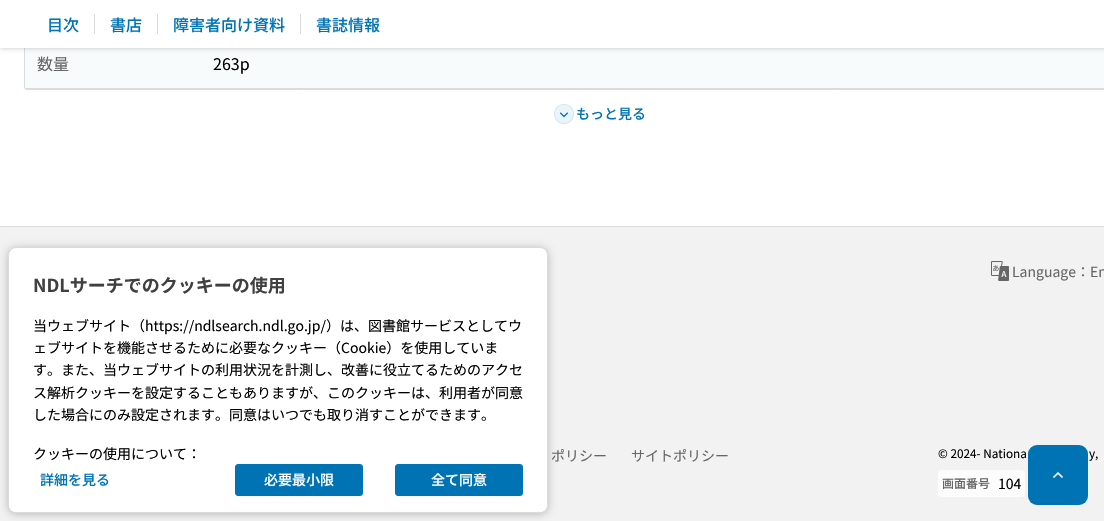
#include "include/core/SkBlurTypes.h"
#include "include/core/SkCanvas.h"
#include "include/core/SkData.h"
#include "include/core/SkFont.h"
#include "include/core/SkFontMgr.h"
#include "include/core/SkImage.h"
#include "include/core/SkMaskFilter.h"
#include "include/core/SkPaint.h"
#include "include/core/SkPathBuilder.h"
#include "include/core/SkTextBlob.h"
#include "include/effects/SkDashPathEffect.h"
#include "include/effects/SkGradientShader.h"
#include "include/utils/SkParsePath.h"

extern sk_sp<SkFontMgr> fontMgr;

static SkFont font(const char* family, int weight, float size, bool italic = false) {
    SkFontStyle style(weight, SkFontStyle::kNormal_Width,
        italic ? SkFontStyle::kItalic_Slant : SkFontStyle::kUpright_Slant);
    SkFont result(fontMgr->matchFamilyStyle(family, style), size);
    result.setSubpixel(true);
    return result;
}

static void drawLabel(SkCanvas* canvas, const char* s, float x, float y, const SkFont& font, SkColor color) {
    SkPaint ink(SkColor4f::FromColor(color));
    ink.setAntiAlias(true);
    canvas->drawString(s, x, y, font, ink);
}

static void fillRect(SkCanvas* canvas, float x, float y, float w, float h, SkColor color) {
    SkPaint ink(SkColor4f::FromColor(color));
    ink.setAntiAlias(true);
    canvas->drawRect(SkRect::MakeXYWH(x, y, w, h), ink);
}

static void fillRRect(SkCanvas* canvas, float x, float y, float w, float h, float radius, SkColor color) {
    SkPaint ink(SkColor4f::FromColor(color));
    ink.setAntiAlias(true);
    canvas->drawRoundRect(SkRect::MakeXYWH(x, y, w, h), radius, radius, ink);
}

static void drawPhoto(SkCanvas* canvas, const char* path, float x, float y, float w, float h) {
    auto image = SkImages::DeferredFromEncodedData(SkData::MakeFromFileName(path));
    canvas->drawImageRect(image, SkRect::MakeXYWH(x, y, w, h), SkSamplingOptions());
}

static SkPath parsePath(const char* data, bool evenOdd = false) {
    SkPath result = *SkParsePath::FromSVGString(data);
    if (evenOdd) result.setFillType(SkPathFillType::kEvenOdd);
    return result;
}

void draw(SkCanvas* canvas) {
    SkPaint paint;
    paint.setAntiAlias(true);
    canvas->clear(0xFFFFFFFF);
    paint.setStroke(true);
    paint.setStrokeWidth(1);
    paint.setColor(0xFFDBDBDB);
    canvas->drawRoundRect(SkRect::MakeXYWH(24.5f, -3.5f, 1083, 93), 2.5f, 2.5f, paint);
    fillRect(canvas, 25, 48, 1079, 40, 0xFFF7FBFC);
    paint.setStroke(false);
    paint.setColor(0x29000000);
    paint.setMaskFilter(SkMaskFilter::MakeBlur(kNormal_SkBlurStyle, 2));
    canvas->drawRect(SkRect::MakeXYWH(0, 1, 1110, 48), paint);
    paint.setMaskFilter(nullptr);
    fillRect(canvas, 0, 0, 1104, 48, 0xFFFFFFFF);
    SkFont font1 = font("Noto Sans JP", 500, 16);
    drawLabel(canvas, "目次", 47, 31, font1, 0xFF0073B5);
    fillRect(canvas, 94, 14, 1, 20, 0xFFDBDBDB);
    drawLabel(canvas, "書店", 110, 31, font1, 0xFF0073B5);
    fillRect(canvas, 157, 14, 1, 20, 0xFFDBDBDB);
    drawLabel(canvas, "障害者向け資料", 173, 31, font1, 0xFF0073B5);
    fillRect(canvas, 300, 14, 1, 20, 0xFFDBDBDB);
    drawLabel(canvas, "書誌情報", 316, 31, font1, 0xFF0073B5);
    fillRect(canvas, 25, 88, 1079, 1, 0xFFDBDBDB);
    SkFont font2 = font("Noto Sans JP", 400, 16);
    drawLabel(canvas, "数量", 37, 70, font2, 0xFF666666);
    drawLabel(canvas, "263p", 213, 70, font2, 0xFF000000);
    drawPhoto(canvas, "assets/img1.png", 554, 104, 20, 20);
    SkFont font3 = font("Noto Sans JP", 500, 14);
    drawLabel(canvas, "もっと見る", 576, 119, font3, 0xFF0073B5);
    fillRect(canvas, 0, 227, 1104, 294, 0xFFF2F2F2);
    paint.setColor(0x3D000000);
    paint.setMaskFilter(SkMaskFilter::MakeBlur(kNormal_SkBlurStyle, 4));
    canvas->drawRoundRect(SkRect::MakeXYWH(8, 248, 540, 266), 8, 8, paint);
    paint.setMaskFilter(nullptr);
    paint.setColor(0xFFFFFFFF);
    canvas->drawRoundRect(SkRect::MakeXYWH(8.5f, 247.5f, 539, 265), 7.5f, 7.5f, paint);
    paint.setStroke(true);
    paint.setColor(0xFFDBDBDB);
    canvas->drawRoundRect(SkRect::MakeXYWH(8.5f, 247.5f, 539, 265), 7.5f, 7.5f, paint);
    SkFont font4 = font("Noto Sans JP", 700, 18);
    drawLabel(canvas, "NDLサーチでのクッキーの使用", 33, 292, font4, 0xFF404040);
    SkFont font5 = font("Noto Sans JP", 400, 14);
    drawLabel(canvas, "当ウェブサイト（https://ndlsearch.ndl.go.jp/）は、図書館サービスとしてウ", 33, 331, font5, 0xFF000000);
    drawLabel(canvas, "ェブサイトを機能させるために必要なクッキー（Cookie）を使用していま", 33, 353, font5, 0xFF000000);
    drawLabel(canvas, "す。また、当ウェブサイトの利用状況を計測し、改善に役立てるためのアクセ", 33, 375, font5, 0xFF000000);
    drawLabel(canvas, "ス解析クッキーを設定することもありますが、このクッキーは、利用者が同意", 33, 398, font5, 0xFF000000);
    drawLabel(canvas, "した場合にのみ設定されます。同意はいつでも取り消すことができます。", 33, 420, font5, 0xFF000000);
    paint.setStroke(false);
    paint.setColor(0xFFFFFFFF);
    canvas->drawPath(parsePath("M9 426H547V505C547 509 544 512 540 512H16C12 512 9 509 9 505Z"), paint);
    drawLabel(canvas, "クッキーの使用について：", 33, 459, font5, 0xFF000000);
    drawLabel(canvas, "詳細を見る", 40, 485, font3, 0xFF0073B5);
    paint.setColor(0xFF0073B5);
    canvas->drawRoundRect(SkRect::MakeXYWH(235.5f, 464.5f, 127, 31), 2.5f, 2.5f, paint);
    paint.setStroke(true);
    canvas->drawRoundRect(SkRect::MakeXYWH(235.5f, 464.5f, 127, 31), 2.5f, 2.5f, paint);
    drawLabel(canvas, "必要最小限", 264, 485, font3, 0xFFFFFFFF);
    paint.setStroke(false);
    canvas->drawRoundRect(SkRect::MakeXYWH(395.5f, 464.5f, 127, 31), 2.5f, 2.5f, paint);
    paint.setStroke(true);
    canvas->drawRoundRect(SkRect::MakeXYWH(395.5f, 464.5f, 127, 31), 2.5f, 2.5f, paint);
    drawLabel(canvas, "全て同意", 431, 485, font3, 0xFFFFFFFF);
    fillRect(canvas, 0, 226, 1104, 1, 0xFFDBDBDB);
    drawPhoto(canvas, "assets/img2.png", 991, 261, 18, 20);
    drawLabel(canvas, "Language：En", 1012, 277, font5, 0xFF666666);
    drawLabel(canvas, "ポリシー", 551, 461, font5, 0xFF666666);
    drawLabel(canvas, "サイトポリシー", 631, 461, font5, 0xFF666666);
    SkFont font6 = font("Noto Sans JP", 400, 11.75f);
    drawLabel(canvas, "© 2024- Nationa", 938, 458, font6, 0xFF000000);
    drawLabel(canvas, "y,", 1089, 458, font6, 0xFF000000);
    fillRRect(canvas, 938, 470, 87, 27, 4, 0xFFFCFCFC);
    SkFont font7 = font("Noto Sans JP", 500, 12);
    drawLabel(canvas, "画面番号", 942, 488, font7, 0xFF666666);
    drawLabel(canvas, "104", 998, 489, font5, 0xFF000000);
    fillRRect(canvas, 1028, 445, 60, 60, 9, 0xFF0073B5);
    drawPhoto(canvas, "assets/img3.png", 1053, 472, 10, 6);
}
